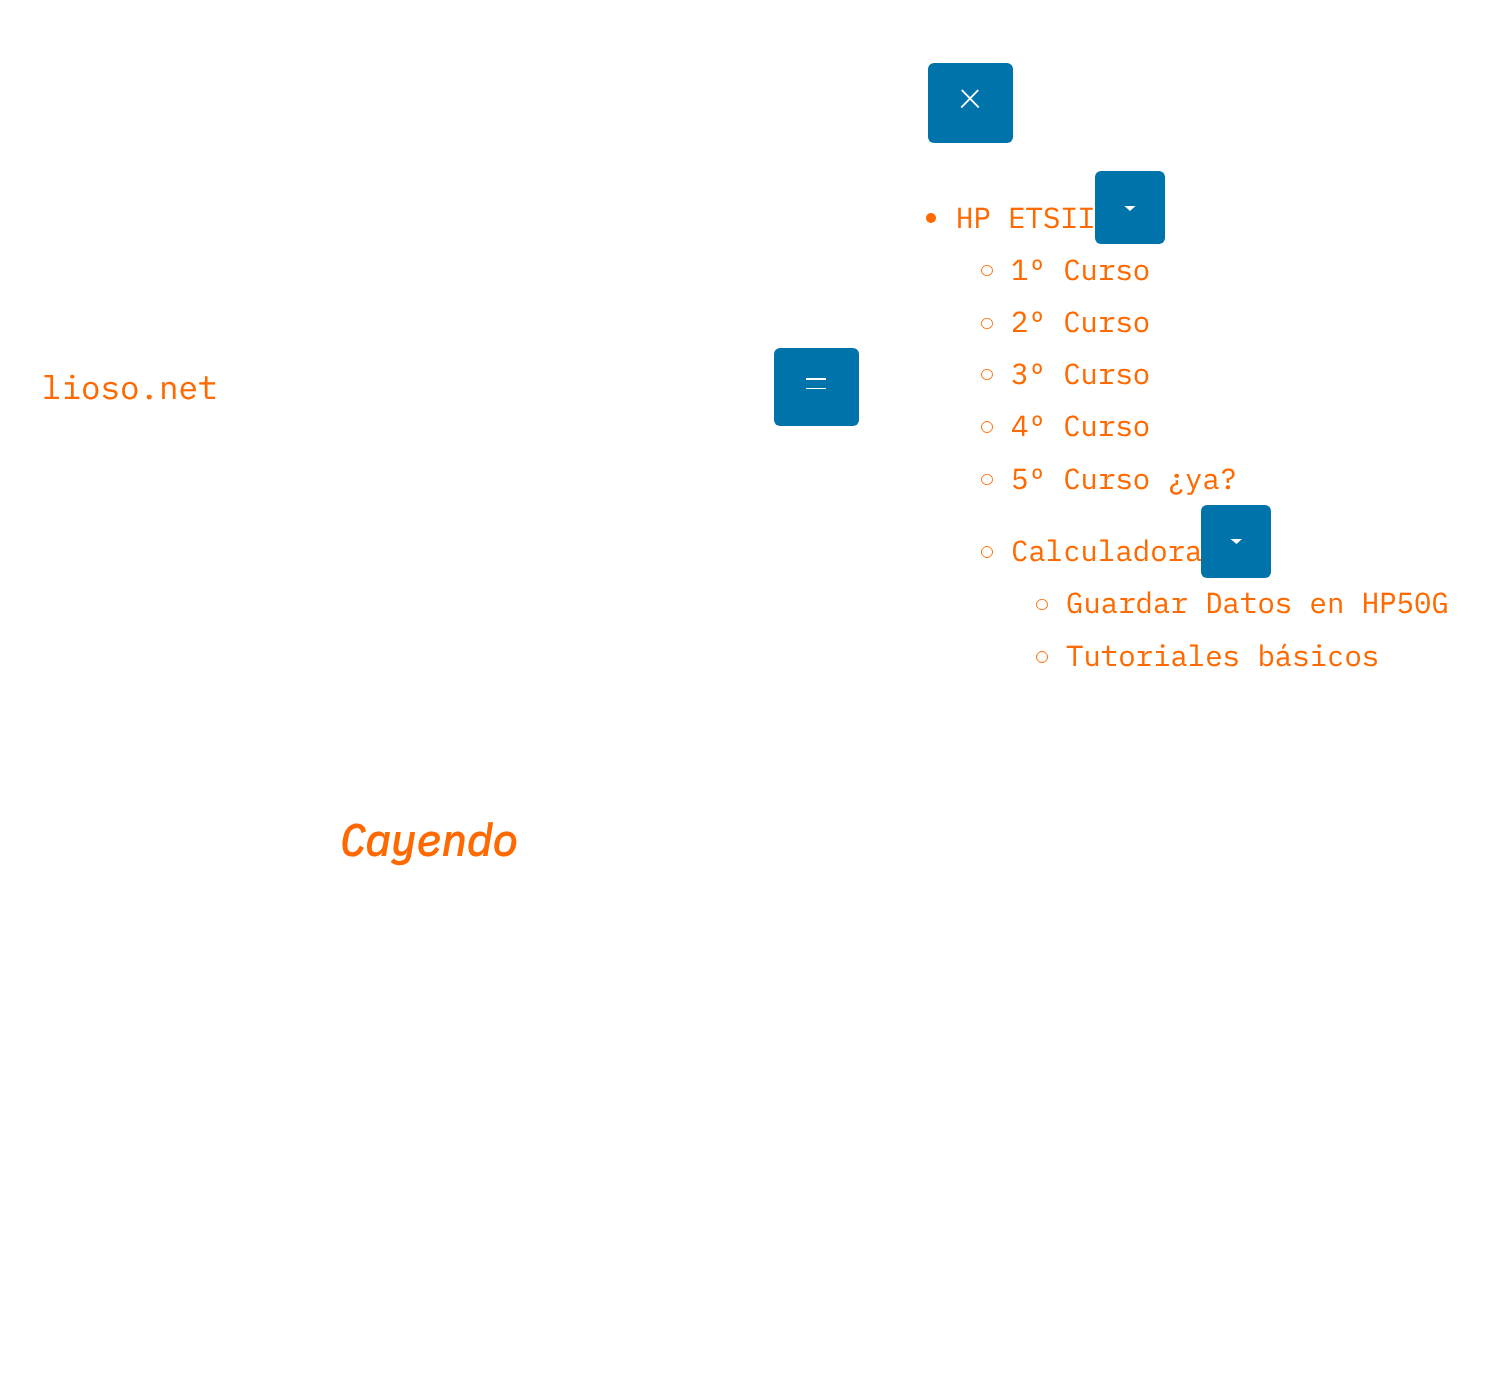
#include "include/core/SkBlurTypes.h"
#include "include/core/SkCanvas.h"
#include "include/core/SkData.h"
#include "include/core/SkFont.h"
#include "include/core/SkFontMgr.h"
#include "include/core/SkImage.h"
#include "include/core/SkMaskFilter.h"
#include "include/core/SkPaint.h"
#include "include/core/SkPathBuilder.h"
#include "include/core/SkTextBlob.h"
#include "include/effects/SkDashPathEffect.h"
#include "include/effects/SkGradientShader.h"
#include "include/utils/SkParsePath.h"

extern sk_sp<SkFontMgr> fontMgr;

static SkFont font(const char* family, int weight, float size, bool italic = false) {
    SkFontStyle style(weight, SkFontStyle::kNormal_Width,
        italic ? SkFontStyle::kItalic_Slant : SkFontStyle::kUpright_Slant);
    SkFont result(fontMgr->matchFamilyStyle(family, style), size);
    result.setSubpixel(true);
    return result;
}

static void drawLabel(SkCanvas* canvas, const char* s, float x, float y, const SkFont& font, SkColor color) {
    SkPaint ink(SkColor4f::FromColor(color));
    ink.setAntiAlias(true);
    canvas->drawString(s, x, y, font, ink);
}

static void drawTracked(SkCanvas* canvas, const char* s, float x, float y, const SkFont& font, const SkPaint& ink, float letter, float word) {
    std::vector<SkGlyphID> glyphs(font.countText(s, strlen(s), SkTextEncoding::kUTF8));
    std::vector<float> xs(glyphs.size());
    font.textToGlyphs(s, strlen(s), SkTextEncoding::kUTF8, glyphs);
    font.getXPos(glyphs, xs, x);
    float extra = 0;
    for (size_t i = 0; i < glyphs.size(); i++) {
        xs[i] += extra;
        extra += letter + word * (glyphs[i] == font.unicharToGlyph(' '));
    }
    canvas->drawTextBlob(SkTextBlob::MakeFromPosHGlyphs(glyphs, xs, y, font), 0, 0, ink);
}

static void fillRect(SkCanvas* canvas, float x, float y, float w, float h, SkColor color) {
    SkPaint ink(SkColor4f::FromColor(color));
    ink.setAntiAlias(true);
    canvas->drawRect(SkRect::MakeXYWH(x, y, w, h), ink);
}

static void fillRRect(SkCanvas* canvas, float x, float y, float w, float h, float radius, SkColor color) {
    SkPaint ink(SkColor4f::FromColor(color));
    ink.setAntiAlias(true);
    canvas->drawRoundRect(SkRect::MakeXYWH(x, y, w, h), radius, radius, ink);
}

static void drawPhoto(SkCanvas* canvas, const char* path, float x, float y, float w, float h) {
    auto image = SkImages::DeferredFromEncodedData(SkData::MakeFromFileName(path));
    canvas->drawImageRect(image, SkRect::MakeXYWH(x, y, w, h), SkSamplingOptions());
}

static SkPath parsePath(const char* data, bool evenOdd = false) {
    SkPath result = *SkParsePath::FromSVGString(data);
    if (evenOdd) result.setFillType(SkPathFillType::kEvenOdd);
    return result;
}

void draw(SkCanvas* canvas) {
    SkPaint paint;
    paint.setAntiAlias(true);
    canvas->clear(0xFFFFFFFF);
    SkFont font1 = font("IBM Plex Mono", 400, 32.5f);
    drawLabel(canvas, "lioso.net", 42, 399, font1, 0xFFFF6900);
    fillRRect(canvas, 774, 348, 85, 78, 6, 0xFF0073AA);
    fillRect(canvas, 806, 378, 20, 2, 0xFFFFFFFF);
    fillRect(canvas, 806, 388, 20, 1, 0xFFFFFFFF);
    fillRRect(canvas, 928, 63, 85, 80, 6, 0xFF0073AA);
    drawPhoto(canvas, "assets/img1.png", 960, 89, 20, 19);
    paint.setColor(0xFFFF6900);
    canvas->drawCircle(931, 218, 5, paint);
    SkFont font2 = font("IBM Plex Mono", 400, 29);
    drawLabel(canvas, "HP ETSII", 956, 228, font2, 0xFFFF6900);
    fillRRect(canvas, 1095, 171, 70, 73, 6, 0xFF0073AA);
    paint.setColor(0xFFFFFFFF);
    canvas->drawPath(parsePath("M1124.5 206L1130 211L1135.5 206"), paint);
    paint.setStroke(true);
    paint.setStrokeWidth(1);
    paint.setColor(0xFFFF6900);
    canvas->drawRoundRect(SkRect::MakeXYWH(981.5f, 265.5f, 11, 10), 5, 5, paint);
    drawLabel(canvas, "1º Curso", 1011, 280, font2, 0xFFFF6900);
    canvas->drawRoundRect(SkRect::MakeXYWH(981.5f, 318.5f, 11, 10), 5, 5, paint);
    drawLabel(canvas, "2º Curso", 1011, 332, font2, 0xFFFF6900);
    canvas->drawRoundRect(SkRect::MakeXYWH(981.5f, 369.5f, 11, 10), 5, 5, paint);
    drawLabel(canvas, "3º Curso", 1011, 384, font2, 0xFFFF6900);
    canvas->drawCircle(987, 427, 5.5f, paint);
    drawLabel(canvas, "4º Curso", 1011, 436, font2, 0xFFFF6900);
    canvas->drawRoundRect(SkRect::MakeXYWH(981.5f, 474.5f, 11, 10), 5, 5, paint);
    drawLabel(canvas, "5º Curso ¿ya?", 1011, 489, font2, 0xFFFF6900);
    canvas->drawCircle(987, 552, 5.5f, paint);
    drawLabel(canvas, "Calculadora", 1011, 561, font2, 0xFFFF6900);
    fillRRect(canvas, 1201, 505, 70, 73, 6, 0xFF0073AA);
    paint.setStroke(false);
    paint.setColor(0xFFFFFFFF);
    canvas->drawPath(parsePath("M1230.5 539L1236.5 544L1242 539"), paint);
    paint.setStroke(true);
    paint.setColor(0xFFFF6900);
    canvas->drawRoundRect(SkRect::MakeXYWH(1036.5f, 599.5f, 11, 10), 5, 5, paint);
    drawLabel(canvas, "Guardar Datos en HP50G", 1066, 613, font2, 0xFFFF6900);
    canvas->drawCircle(1042, 657, 5.5f, paint);
    drawLabel(canvas, "Tutoriales básicos", 1066, 666, font2, 0xFFFF6900);
    SkFont font3 = font("IBM Plex Mono", 700, 44, true);
    paint.setStroke(false);
    drawTracked(canvas, "Cayendo", 339, 856, font3, paint, -1, 0);
}
